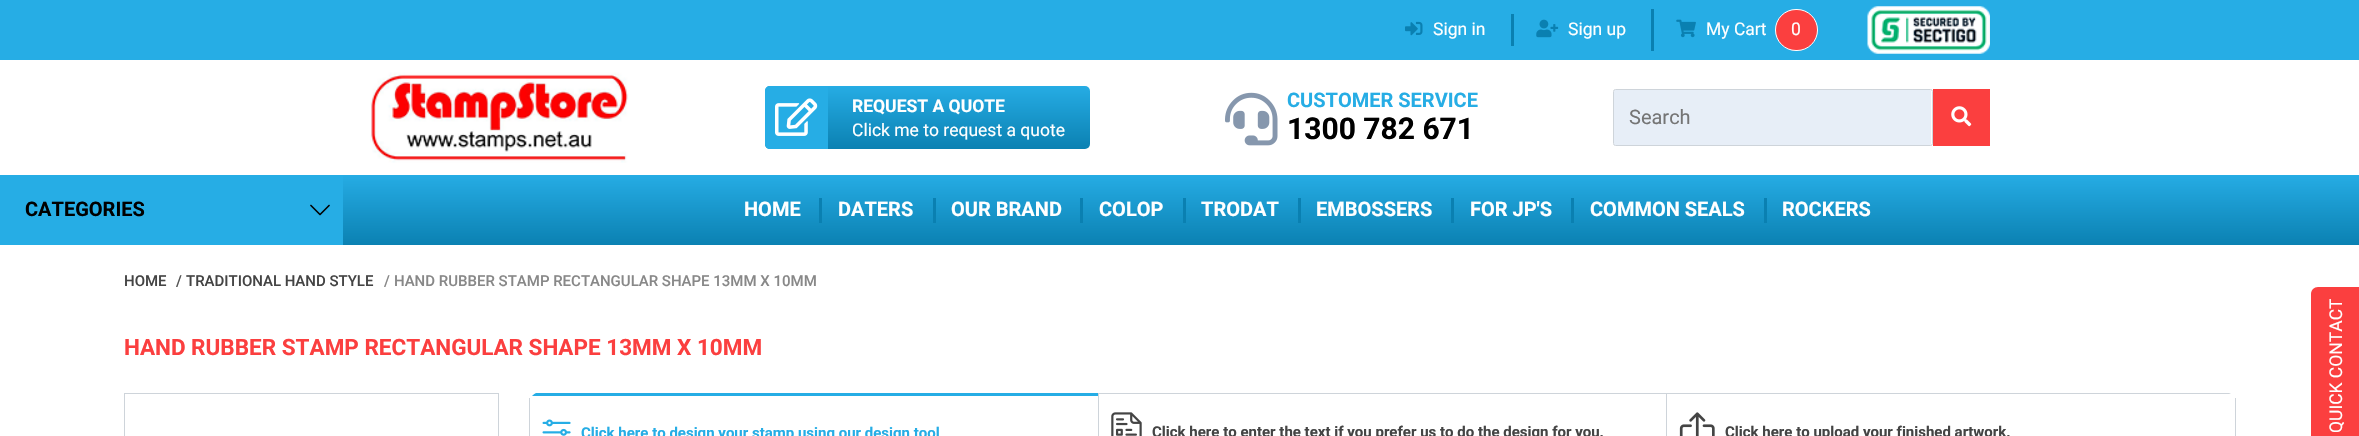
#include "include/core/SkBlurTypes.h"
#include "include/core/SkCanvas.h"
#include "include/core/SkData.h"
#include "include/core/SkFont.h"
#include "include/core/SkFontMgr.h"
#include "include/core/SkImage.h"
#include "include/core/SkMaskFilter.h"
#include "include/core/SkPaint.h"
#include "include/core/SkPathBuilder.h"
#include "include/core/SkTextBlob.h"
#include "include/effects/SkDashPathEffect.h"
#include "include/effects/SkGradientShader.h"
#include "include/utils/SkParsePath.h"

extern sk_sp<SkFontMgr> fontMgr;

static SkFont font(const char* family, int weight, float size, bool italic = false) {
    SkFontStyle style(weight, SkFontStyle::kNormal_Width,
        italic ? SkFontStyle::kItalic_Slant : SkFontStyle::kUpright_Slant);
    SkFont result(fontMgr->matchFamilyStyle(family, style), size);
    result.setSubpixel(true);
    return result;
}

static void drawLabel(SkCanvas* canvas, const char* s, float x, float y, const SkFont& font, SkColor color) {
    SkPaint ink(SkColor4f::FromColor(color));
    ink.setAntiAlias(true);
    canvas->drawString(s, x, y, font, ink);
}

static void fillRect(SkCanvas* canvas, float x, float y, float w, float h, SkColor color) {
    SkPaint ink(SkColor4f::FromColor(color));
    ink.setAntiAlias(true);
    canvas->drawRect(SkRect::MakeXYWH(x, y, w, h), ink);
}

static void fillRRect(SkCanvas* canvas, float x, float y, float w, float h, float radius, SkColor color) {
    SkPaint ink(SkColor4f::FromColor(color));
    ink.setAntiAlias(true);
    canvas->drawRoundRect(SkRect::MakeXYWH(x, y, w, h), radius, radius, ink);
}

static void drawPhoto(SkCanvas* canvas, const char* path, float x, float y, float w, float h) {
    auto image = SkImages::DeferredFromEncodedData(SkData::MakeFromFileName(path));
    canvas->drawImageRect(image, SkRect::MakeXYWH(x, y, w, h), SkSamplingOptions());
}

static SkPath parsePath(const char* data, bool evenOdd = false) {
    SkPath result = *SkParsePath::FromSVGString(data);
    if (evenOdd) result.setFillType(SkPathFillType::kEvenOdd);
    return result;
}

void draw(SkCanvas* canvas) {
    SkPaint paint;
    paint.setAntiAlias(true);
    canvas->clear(0xFFFFFFFF);
    fillRect(canvas, 0, 0, 2359, 60, 0xFF26ADE5);
    drawPhoto(canvas, "assets/img1.png", 1405, 21, 18, 15);
    SkFont font1 = font("Roboto", 400, 17.5f);
    drawLabel(canvas, "Sign in", 1433, 35, font1, 0xFFFFFFFF);
    fillRect(canvas, 1511, 14, 3, 32, 0xFF0A80B1);
    drawPhoto(canvas, "assets/img2.png", 1536, 19, 23, 19);
    drawLabel(canvas, "Sign up", 1568, 35, font1, 0xFFFFFFFF);
    fillRect(canvas, 1651, 9, 3, 42, 0xFF0A80B1);
    drawPhoto(canvas, "assets/img3.png", 1676, 19, 20, 19);
    drawLabel(canvas, "My Cart", 1706, 35, font1, 0xFFFFFFFF);
    paint.setColor(0xFFFB3F3F);
    canvas->drawRoundRect(SkRect::MakeXYWH(1775.5f, 9.5f, 42, 41), 20.5f, 20.5f, paint);
    paint.setStroke(true);
    paint.setStrokeWidth(1);
    paint.setColor(0xFFFFFFFF);
    canvas->drawRoundRect(SkRect::MakeXYWH(1775.5f, 9.5f, 42, 41), 20.5f, 20.5f, paint);
    drawLabel(canvas, "0", 1791, 35, font1, 0xFFFFFFFF);
    drawPhoto(canvas, "assets/img4.png", 1867, 6, 123, 48);
    drawPhoto(canvas, "assets/img5.png", 370, 72, 259, 91);
    paint.setStroke(false);
    {
        const SkColor colors[] = {0xFF26ACE4, 0xFF0B81B2, 0xFF7DB9E8};
        const float stops[] = {0, 1, 1};
        const SkPoint ends[] = {{928, 86}, {928, 149}};
        paint.setShader(SkGradientShader::MakeLinear(ends, colors, stops, 3, SkTileMode::kClamp));
        paint.setAlpha(255);
    }
    canvas->drawRoundRect(SkRect::MakeXYWH(765, 86, 325, 63), 5, 5, paint);
    paint.setShader(nullptr);
    paint.setColor(0xFF26ADE5);
    canvas->drawPath(parsePath("M770 86H828V149H770C767 149 765 147 765 144V91C765 88 767 86 770 86Z"), paint);
    drawPhoto(canvas, "assets/img6.png", 775, 98, 43, 38);
    SkFont font2 = font("Roboto", 700, 17.5f);
    drawLabel(canvas, "REQUEST A QUOTE", 852, 112, font2, 0xFFFFFFFF);
    drawLabel(canvas, "Click me to request a quote", 852, 136, font1, 0xFFFFFFFF);
    drawPhoto(canvas, "assets/img7.png", 1225, 92, 53, 54);
    SkFont font3 = font("Roboto", 700, 20);
    drawLabel(canvas, "CUSTOMER SERVICE", 1287, 107, font3, 0xFF26ADE5);
    SkFont font4 = font("Roboto", 700, 30);
    drawLabel(canvas, "1300 782 671", 1287, 139, font4, 0xFF000000);
    fillRRect(canvas, 1614, 90, 317, 55, 1, 0xFFE7EEF7);
    paint.setStroke(true);
    paint.setColor(0xFFCED4DA);
    canvas->drawRoundRect(SkRect::MakeXYWH(1613.5f, 89.5f, 319, 56), 2, 2, paint);
    SkFont font5 = font("Roboto", 400, 20);
    drawLabel(canvas, "Search", 1629, 124, font5, 0xFF757575);
    fillRect(canvas, 1933, 89, 57, 57, 0xFFFB3F3F);
    drawPhoto(canvas, "assets/img8.png", 1951, 106, 21, 21);
    paint.setStroke(false);
    {
        const SkColor colors[] = {0xFF26ACE4, 0xFF0B81B2, 0xFF7DB9E8};
        const float stops[] = {0, 1, 1};
        const SkPoint ends[] = {{1180, 175}, {1180, 245}};
        paint.setShader(SkGradientShader::MakeLinear(ends, colors, stops, 3, SkTileMode::kClamp));
        paint.setAlpha(255);
    }
    canvas->drawRect(SkRect::MakeXYWH(343, 175, 2016, 70), paint);
    drawLabel(canvas, "HOME", 744, 216, font3, 0xFFFFFFFF);
    fillRect(canvas, 819, 198, 3, 25, 0xFF0A80B1);
    drawLabel(canvas, "DATERS", 838, 216, font3, 0xFFFFFFFF);
    fillRect(canvas, 933, 198, 3, 25, 0xFF0A80B1);
    drawLabel(canvas, "OUR BRAND", 951, 216, font3, 0xFFFFFFFF);
    fillRect(canvas, 1080, 198, 3, 25, 0xFF0A80B1);
    drawLabel(canvas, "COLOP", 1099, 216, font3, 0xFFFFFFFF);
    fillRect(canvas, 1183, 198, 3, 25, 0xFF0A80B1);
    drawLabel(canvas, "TRODAT", 1201, 216, font3, 0xFFFFFFFF);
    fillRect(canvas, 1298, 198, 3, 25, 0xFF0A80B1);
    drawLabel(canvas, "EMBOSSERS", 1316, 216, font3, 0xFFFFFFFF);
    fillRect(canvas, 1451, 198, 3, 25, 0xFF0A80B1);
    drawLabel(canvas, "FOR JP'S", 1470, 216, font3, 0xFFFFFFFF);
    fillRect(canvas, 1571, 198, 3, 25, 0xFF0A80B1);
    drawLabel(canvas, "COMMON SEALS", 1590, 216, font3, 0xFFFFFFFF);
    fillRect(canvas, 1764, 198, 3, 25, 0xFF0A80B1);
    drawLabel(canvas, "ROCKERS", 1782, 216, font3, 0xFFFFFFFF);
    fillRect(canvas, 0, 175, 343, 70, 0xFF26ADE5);
    drawLabel(canvas, "CATEGORIES", 25, 216, font3, 0xFF000000);
    drawPhoto(canvas, "assets/img9.png", 310, 204, 20, 12);
    SkFont font6 = font("Roboto", 500, 15);
    drawLabel(canvas, "HOME", 124, 286, font6, 0xFF444444);
    drawLabel(canvas, "/", 176, 286, font6, 0xFF555555);
    drawLabel(canvas, "TRADITIONAL HAND STYLE", 186, 286, font6, 0xFF444444);
    drawLabel(canvas, "/", 384, 286, font6, 0xFF888888);
    drawLabel(canvas, "HAND RUBBER STAMP RECTANGULAR SHAPE 13MM X 10MM", 394, 286, font6, 0xFF888888);
    SkFont font7 = font("Roboto", 700, 22.5f);
    drawLabel(canvas, "HAND RUBBER STAMP RECTANGULAR SHAPE 13MM X 10MM", 124, 355, font7, 0xFFFB3F3F);
    paint.setStroke(true);
    paint.setShader(nullptr);
    paint.setColor(0xFFCED4DA);
    canvas->drawRect(SkRect::MakeXYWH(124.5f, 393.5f, 374, 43), paint);
    fillRect(canvas, 2235, 398, 1, 38, 0xFFCED4DA);
    fillRect(canvas, 529, 398, 1, 38, 0xFFCED4DA);
    paint.setStroke(false);
    paint.setColor(0xFF26ADE5);
    canvas->drawPath(parsePath("M532 396C533 395 534 394 536 393H1098V396Z"), paint);
    drawPhoto(canvas, "assets/img10.png", 542, 419, 29, 17);
    SkFont font8 = font("Roboto", 700, 15);
    drawLabel(canvas, "Click here to design your stamp using our design tool", 581, 438, font8, 0xFF26ADE5);
    fillRect(canvas, 1098, 393, 568, 1, 0xFFCED4DA);
    fillRect(canvas, 1098, 393, 1, 43, 0xFFCED4DA);
    drawPhoto(canvas, "assets/img11.png", 1111, 412, 31, 24);
    drawLabel(canvas, "Click here to enter the text if you prefer us to do the design for you.", 1152, 437, font8, 0xFF444444);
    paint.setColor(0xFFCED4DA);
    canvas->drawPath(parsePath("M1666 393H2229L2231 394H1666Z"), paint);
    fillRect(canvas, 1666, 393, 1, 43, 0xFFCED4DA);
    drawPhoto(canvas, "assets/img12.png", 1679, 412, 36, 24);
    drawLabel(canvas, "Click here to upload your finished artwork.", 1725, 437, font8, 0xFF444444);
    paint.setColor(0xFFFB3F3F);
    canvas->drawPath(parsePath("M2311 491V294C2311 290 2314 287 2318 287H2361V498H2318C2314 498 2311 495 2311 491Z"), paint);
    canvas->save();
    canvas->rotate(-90, 2342, 433);
    drawLabel(canvas, "QUICK CONTACT", 2342, 433, font1, 0xFFFFFFFF);
    canvas->restore();
}
